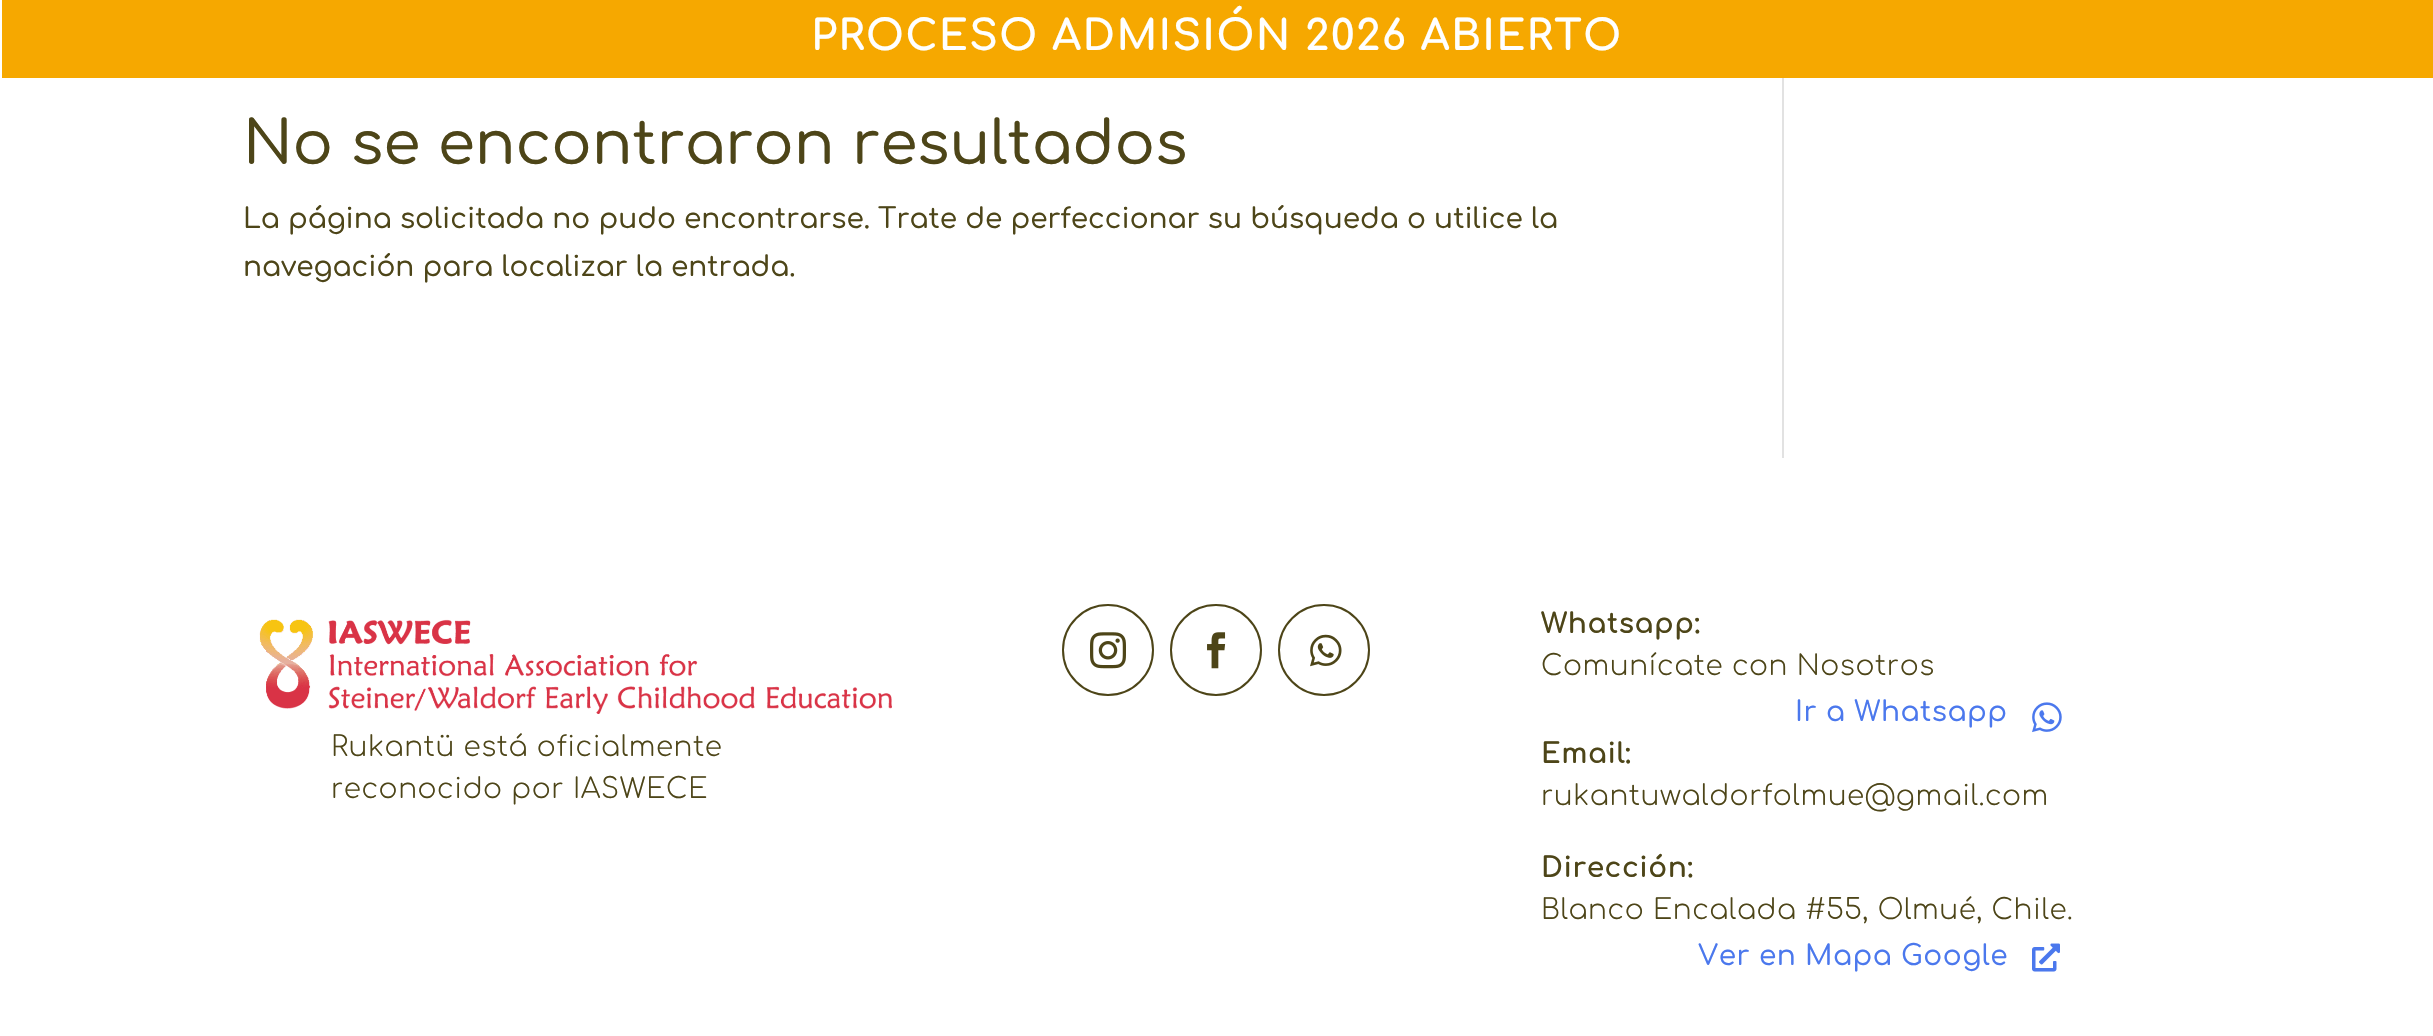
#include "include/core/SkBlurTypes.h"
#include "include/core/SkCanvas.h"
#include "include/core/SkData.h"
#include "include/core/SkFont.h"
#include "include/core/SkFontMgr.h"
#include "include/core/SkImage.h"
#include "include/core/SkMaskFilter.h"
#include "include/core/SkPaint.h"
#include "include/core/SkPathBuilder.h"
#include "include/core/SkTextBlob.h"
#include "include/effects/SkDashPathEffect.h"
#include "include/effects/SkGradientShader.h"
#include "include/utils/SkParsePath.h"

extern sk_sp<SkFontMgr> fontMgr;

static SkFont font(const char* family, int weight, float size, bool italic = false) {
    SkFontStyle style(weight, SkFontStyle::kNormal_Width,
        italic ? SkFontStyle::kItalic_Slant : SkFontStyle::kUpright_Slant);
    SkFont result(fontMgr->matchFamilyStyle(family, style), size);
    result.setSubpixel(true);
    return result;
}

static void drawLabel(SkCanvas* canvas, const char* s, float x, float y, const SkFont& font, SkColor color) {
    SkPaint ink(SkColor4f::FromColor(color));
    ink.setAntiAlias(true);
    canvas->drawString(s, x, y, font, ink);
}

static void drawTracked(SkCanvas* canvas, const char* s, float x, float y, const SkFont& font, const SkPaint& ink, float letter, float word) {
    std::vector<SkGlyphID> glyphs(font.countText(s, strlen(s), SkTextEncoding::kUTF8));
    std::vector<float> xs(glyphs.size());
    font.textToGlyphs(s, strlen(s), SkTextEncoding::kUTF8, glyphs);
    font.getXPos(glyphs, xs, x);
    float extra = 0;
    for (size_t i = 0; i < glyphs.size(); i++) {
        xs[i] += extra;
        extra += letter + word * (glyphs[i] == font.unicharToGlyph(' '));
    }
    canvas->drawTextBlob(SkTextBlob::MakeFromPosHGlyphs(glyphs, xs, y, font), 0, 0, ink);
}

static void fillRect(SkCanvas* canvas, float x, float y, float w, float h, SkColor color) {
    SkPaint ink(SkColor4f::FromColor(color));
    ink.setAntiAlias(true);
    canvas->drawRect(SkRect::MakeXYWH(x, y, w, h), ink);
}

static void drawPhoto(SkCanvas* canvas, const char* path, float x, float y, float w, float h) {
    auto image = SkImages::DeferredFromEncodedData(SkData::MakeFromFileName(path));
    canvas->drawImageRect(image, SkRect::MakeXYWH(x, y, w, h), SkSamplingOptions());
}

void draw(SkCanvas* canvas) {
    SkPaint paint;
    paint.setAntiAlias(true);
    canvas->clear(0xFFFFFFFF);
    fillRect(canvas, 2, 0, 2431, 78, 0xFFF6A800);
    SkFont font1 = font("Comfortaa", 700, 41.6f);
    paint.setColor(0xFFFFFFFF);
    drawTracked(canvas, "PROCESO ADMISIÓN 2026 ABIERTO", 811, 50, font1, paint, 1.25f, 0);
    SkFont font2 = font("Comfortaa", 500, 60);
    drawLabel(canvas, "No se encontraron resultados", 243, 164, font2, 0xFF4D4518);
    SkFont font3 = font("Comfortaa", 500, 28);
    drawLabel(canvas, "La página solicitada no pudo encontrarse. Trate de perfeccionar su búsqueda o utilice la", 243, 228, font3, 0xFF4D4518);
    drawLabel(canvas, "navegación para localizar la entrada.", 243, 276, font3, 0xFF4D4518);
    fillRect(canvas, 1782, 78, 2, 380, 0xFFE2E2E2);
    drawPhoto(canvas, "assets/img1.png", 259, 619, 633, 95);
    SkFont font4 = font("Comfortaa", 300, 28);
    paint.setColor(0xFF4D4518);
    drawTracked(canvas, "Rukantü está oficialmente", 331, 756, font4, paint, 0.55f, 0);
    drawTracked(canvas, "reconocido por IASWECE", 331, 798, font4, paint, 0.55f, 0);
    paint.setStroke(true);
    paint.setStrokeWidth(2);
    canvas->drawCircle(1108, 650, 45, paint);
    drawPhoto(canvas, "assets/img2.png", 1090, 632, 36, 37);
    canvas->drawCircle(1216, 650, 45, paint);
    drawPhoto(canvas, "assets/img3.png", 1207, 632, 19, 37);
    canvas->drawCircle(1324, 650, 45, paint);
    drawPhoto(canvas, "assets/img4.png", 1310, 634, 32, 33);
    SkFont font5 = font("Comfortaa", 700, 28);
    paint.setStroke(false);
    drawTracked(canvas, "Whatsapp:", 1541, 633, font5, paint, 0.55f, 0);
    drawTracked(canvas, "Comunícate con Nosotros", 1541, 675, font4, paint, 0.55f, 0);
    paint.setColor(0xFF4B78ED);
    drawTracked(canvas, "Ir a Whatsapp", 1795, 721, font3, paint, 0.55f, 0);
    drawPhoto(canvas, "assets/img5.png", 2032, 702, 30, 31);
    paint.setColor(0xFF4D4518);
    drawTracked(canvas, "Email:", 1541, 763, font5, paint, 0.55f, 0);
    drawTracked(canvas, "rukantuwaldorfolmue@gmail.com", 1541, 805, font4, paint, 0.55f, 0);
    drawTracked(canvas, "Dirección:", 1541, 877, font5, paint, 0.55f, 0);
    drawTracked(canvas, "Blanco Encalada #55, Olmué, Chile.", 1541, 919, font4, paint, 0.55f, 0);
    paint.setColor(0xFF4B78ED);
    drawTracked(canvas, "Ver en Mapa Google", 1698, 965, font3, paint, 0.55f, 0);
    drawPhoto(canvas, "assets/img6.png", 2032, 943, 28, 29);
}
